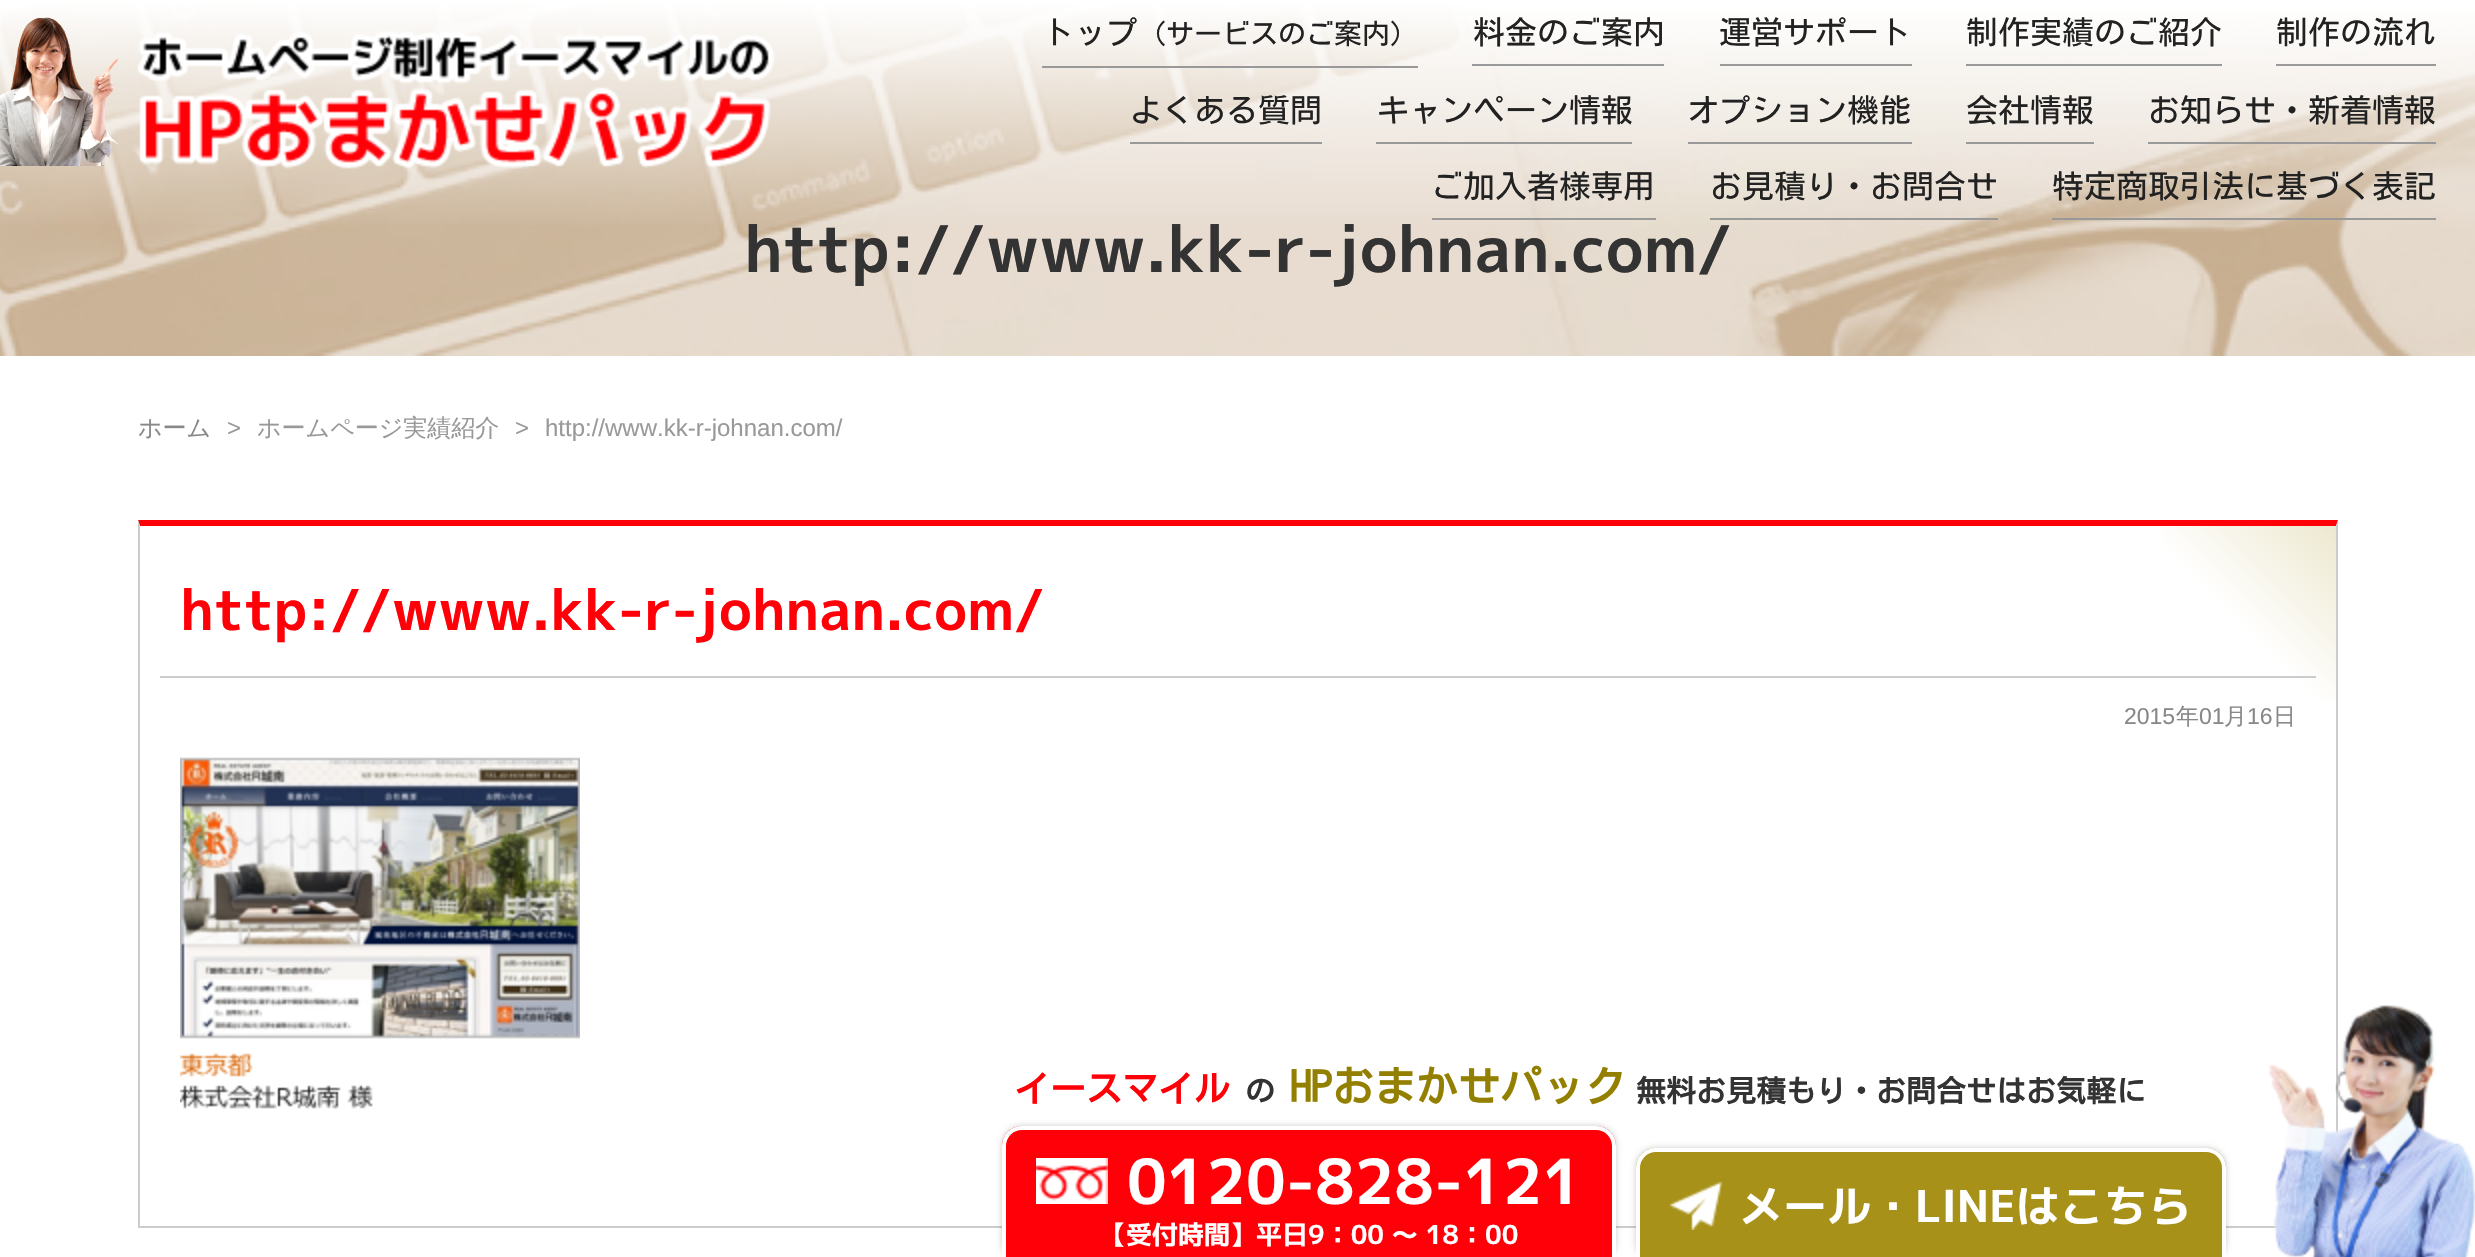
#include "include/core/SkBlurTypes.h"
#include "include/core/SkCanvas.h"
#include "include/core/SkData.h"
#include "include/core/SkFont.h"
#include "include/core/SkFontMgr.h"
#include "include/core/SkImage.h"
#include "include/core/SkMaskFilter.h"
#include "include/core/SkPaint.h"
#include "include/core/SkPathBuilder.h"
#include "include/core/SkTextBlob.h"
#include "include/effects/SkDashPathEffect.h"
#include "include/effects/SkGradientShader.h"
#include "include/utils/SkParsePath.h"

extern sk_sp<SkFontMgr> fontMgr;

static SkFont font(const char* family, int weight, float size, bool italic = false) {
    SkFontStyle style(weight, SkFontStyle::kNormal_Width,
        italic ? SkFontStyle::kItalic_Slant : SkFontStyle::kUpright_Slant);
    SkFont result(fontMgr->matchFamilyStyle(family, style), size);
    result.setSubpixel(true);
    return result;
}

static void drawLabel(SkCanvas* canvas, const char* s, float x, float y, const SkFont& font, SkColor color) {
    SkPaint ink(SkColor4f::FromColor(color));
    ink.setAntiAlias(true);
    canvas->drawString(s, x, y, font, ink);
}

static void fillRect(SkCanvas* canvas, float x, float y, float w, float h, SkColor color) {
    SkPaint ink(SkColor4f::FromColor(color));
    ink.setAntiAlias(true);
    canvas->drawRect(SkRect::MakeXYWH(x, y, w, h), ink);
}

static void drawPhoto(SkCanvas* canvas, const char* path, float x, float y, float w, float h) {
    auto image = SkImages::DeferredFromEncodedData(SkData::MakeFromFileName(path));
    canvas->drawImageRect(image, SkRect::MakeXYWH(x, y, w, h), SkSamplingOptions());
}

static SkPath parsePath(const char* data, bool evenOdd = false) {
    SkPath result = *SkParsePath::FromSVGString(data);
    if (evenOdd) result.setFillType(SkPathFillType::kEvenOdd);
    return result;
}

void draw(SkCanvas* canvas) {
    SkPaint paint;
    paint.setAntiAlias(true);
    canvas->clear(0xFFFFFFFF);
    drawPhoto(canvas, "assets/img6.png", 0, 1, 2475, 355);
    SkFont font1 = font("M PLUS 1p", 700, 64);
    drawLabel(canvas, "http://www.kk-r-johnan.com/", 744, 272, font1, 0xFF333333);
    {
        const SkColor colors[] = {0xFFFFFFFF, 0x00FFFFFF};
        const float stops[] = {0, 1};
        const SkPoint ends[] = {{1238, 0}, {1238, 230}};
        paint.setShader(SkGradientShader::MakeLinear(ends, colors, stops, 2, SkTileMode::kClamp));
        paint.setAlpha(255);
    }
    canvas->drawRect(SkRect::MakeXYWH(0, 1, 2475, 224), paint);
    drawPhoto(canvas, "assets/img1.png", 0, 17, 118, 149);
    drawPhoto(canvas, "assets/img2.png", 137, 31, 638, 138);
    fillRect(canvas, 1042, 66, 376, 2, 0xFF999999);
    SkFont font2 = font("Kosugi", 400, 32);
    drawLabel(canvas, "トップ", 1042, 44, font2, 0xFF222222);
    SkFont font3 = font("Kosugi", 400, 28);
    drawLabel(canvas, "（サービスのご案内）", 1138, 44, font3, 0xFF222222);
    fillRect(canvas, 1472, 64, 192, 2, 0xFF999999);
    drawLabel(canvas, "料金のご案内", 1473, 44, font2, 0xFF222222);
    fillRect(canvas, 1720, 64, 192, 2, 0xFF999999);
    drawLabel(canvas, "運営サポート", 1719, 44, font2, 0xFF222222);
    fillRect(canvas, 1966, 64, 256, 2, 0xFF999999);
    drawLabel(canvas, "制作実績のご紹介", 1966, 44, font2, 0xFF222222);
    fillRect(canvas, 2276, 64, 160, 2, 0xFF999999);
    drawLabel(canvas, "制作の流れ", 2276, 44, font2, 0xFF222222);
    fillRect(canvas, 1130, 142, 192, 2, 0xFF999999);
    drawLabel(canvas, "よくある質問", 1130, 122, font2, 0xFF222222);
    fillRect(canvas, 1376, 142, 256, 2, 0xFF999999);
    drawLabel(canvas, "キャンペーン情報", 1377, 122, font2, 0xFF222222);
    fillRect(canvas, 1688, 142, 224, 2, 0xFF999999);
    drawLabel(canvas, "オプション機能", 1687, 122, font2, 0xFF222222);
    fillRect(canvas, 1966, 142, 128, 2, 0xFF999999);
    drawLabel(canvas, "会社情報", 1966, 122, font2, 0xFF222222);
    fillRect(canvas, 2148, 142, 288, 2, 0xFF999999);
    drawLabel(canvas, "お知らせ・新着情報", 2148, 122, font2, 0xFF222222);
    fillRect(canvas, 1432, 218, 224, 2, 0xFF999999);
    drawLabel(canvas, "ご加入者様専用", 1431, 198, font2, 0xFF222222);
    fillRect(canvas, 1710, 218, 288, 2, 0xFF999999);
    drawLabel(canvas, "お見積り・お問合せ", 1710, 198, font2, 0xFF222222);
    fillRect(canvas, 2052, 218, 384, 2, 0xFF999999);
    drawLabel(canvas, "特定商取引法に基づく表記", 2052, 198, font2, 0xFF222222);
    paint.setShader(nullptr);
    paint.setColor(0xFFFF0008);
    canvas->drawPath(parsePath("M138 520H2338L2336 526H140Z"), paint);
    paint.setColor(0xFFCCCCCC);
    canvas->drawPath(parsePath("M2338 520V1228L2336 1226V526Z"), paint);
    fillRect(canvas, 138, 1226, 2139, 2, 0xFFCCCCCC);
    drawPhoto(canvas, "assets/img3.png", 2268, 1005, 207, 252);
    SkFont font4 = font("Kosugi", 700, 36);
    drawLabel(canvas, "イースマイル", 1014, 1102, font4, 0xFFFF0008);
    SkFont font5 = font("Kosugi", 700, 30);
    drawLabel(canvas, "の", 1245, 1102, font5, 0xFF333333);
    SkFont font6 = font("Kosugi", 700, 42);
    drawLabel(canvas, "HPおまかせパック", 1290, 1102, font6, 0xFF948000);
    drawLabel(canvas, "無料お見積もり・お問合せはお気軽に", 1636, 1102, font5, 0xFF333333);
    paint.setColor(0x33000000);
    paint.setMaskFilter(SkMaskFilter::MakeBlur(kNormal_SkBlurStyle, 3));
    canvas->drawRoundRect(SkRect::MakeXYWH(1002, 1126, 614, 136), 20, 20, paint);
    paint.setMaskFilter(nullptr);
    paint.setColor(0xFFFF0008);
    canvas->drawPath(parsePath("M1022 1126H1596C1607 1126 1616 1135 1616 1146V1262H1002V1146C1002 1135 1011 1126 1022 1126Z"), paint);
    drawPhoto(canvas, "assets/img4.png", 1036, 1158, 72, 46);
    paint.setStroke(true);
    paint.setStrokeWidth(4);
    paint.setColor(0xFFFFFFFF);
    canvas->drawPath(parsePath("M1022 1128H1596C1606 1128 1614 1136 1614 1146V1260H1004V1146C1004 1136 1012 1128 1022 1128Z"), paint);
    SkFont font7 = font("M PLUS 1p", 700, 62);
    drawLabel(canvas, "0120-828-121", 1127, 1204, font7, 0xFFFFFFFF);
    SkFont font8 = font("M PLUS 1p", 700, 26);
    drawLabel(canvas, "【受付時間】平日9：00 ～ 18：00", 1100, 1244, font8, 0xFFFFFFFF);
    paint.setStroke(false);
    paint.setColor(0x33000000);
    paint.setMaskFilter(SkMaskFilter::MakeBlur(kNormal_SkBlurStyle, 3));
    canvas->drawRoundRect(SkRect::MakeXYWH(1636, 1148, 590, 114), 20, 20, paint);
    paint.setMaskFilter(nullptr);
    paint.setColor(0xFFA79118);
    canvas->drawPath(parsePath("M1656 1148H2206C2217 1148 2226 1157 2226 1168V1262H1636V1168C1636 1157 1645 1148 1656 1148Z"), paint);
    drawPhoto(canvas, "assets/img5.png", 1670, 1182, 52, 48);
    paint.setStroke(true);
    paint.setColor(0xFFFFFFFF);
    canvas->drawPath(parsePath("M1656 1150H2206C2216 1150 2224 1158 2224 1168V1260H1638V1168C1638 1158 1646 1150 1656 1150Z"), paint);
    SkFont font9 = font("M PLUS 1p", 700, 44);
    drawLabel(canvas, "メール・LINEはこちら", 1739, 1222, font9, 0xFFFFFFFF);
    SkFont font10 = font("WenQuanYi Zen Hei", 500, 24);
    drawLabel(canvas, "ホーム", 138, 436, font10, 0xFF888888);
    SkFont font11 = font("Liberation Sans", 400, 24);
    drawLabel(canvas, ">", 227, 436, font11, 0xFF999999);
    drawLabel(canvas, "ホームページ実績紹介", 257, 436, font10, 0xFF999999);
    drawLabel(canvas, ">", 515, 436, font11, 0xFF999999);
    drawLabel(canvas, "http://www.kk-r-johnan.com/", 545, 436, font11, 0xFF999999);
    drawPhoto(canvas, "assets/img7.png", 2161, 526, 175, 175);
    paint.setStroke(false);
    paint.setColor(0xFFCCCCCC);
    canvas->drawPath(parsePath("M138 1228V520L140 526V1226Z"), paint);
    fillRect(canvas, 160, 676, 2156, 2, 0xFFCCCCCC);
    SkFont font12 = font("M PLUS 1p", 700, 56);
    drawLabel(canvas, "http://www.kk-r-johnan.com/", 180, 630, font12, 0xFFFF0008);
    SkFont font13 = font("Liberation Sans", 400, 23);
    drawLabel(canvas, "2015", 2124, 724, font13, 0xFF888888);
    SkFont font14 = font("WenQuanYi Zen Hei", 500, 23);
    drawLabel(canvas, "年", 2176, 724, font14, 0xFF888888);
    drawLabel(canvas, "01", 2199, 724, font13, 0xFF888888);
    drawLabel(canvas, "月", 2224, 724, font14, 0xFF888888);
    drawLabel(canvas, "16", 2247, 724, font13, 0xFF888888);
    drawLabel(canvas, "日", 2273, 724, font14, 0xFF888888);
    drawPhoto(canvas, "assets/img8.png", 180, 757, 400, 352);
}
